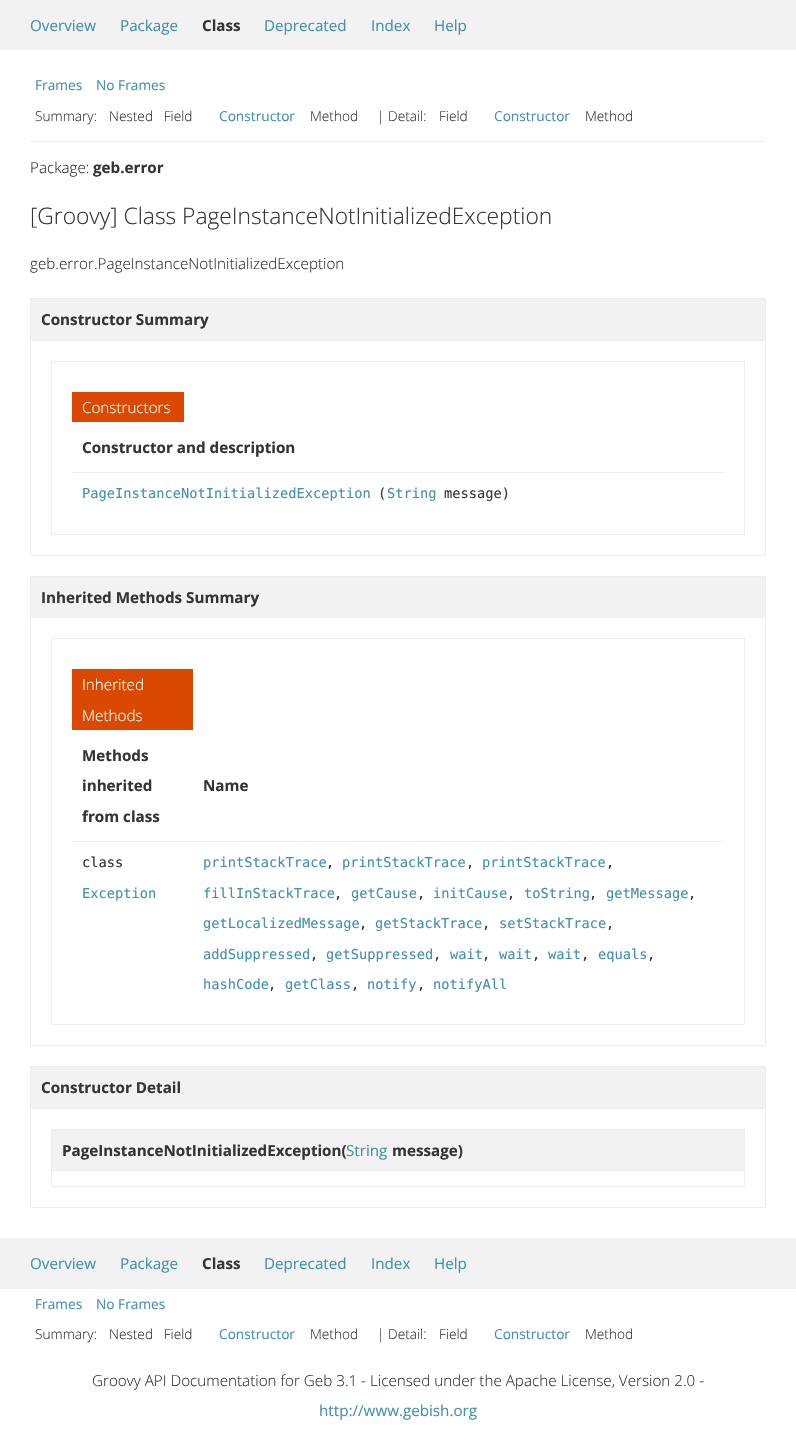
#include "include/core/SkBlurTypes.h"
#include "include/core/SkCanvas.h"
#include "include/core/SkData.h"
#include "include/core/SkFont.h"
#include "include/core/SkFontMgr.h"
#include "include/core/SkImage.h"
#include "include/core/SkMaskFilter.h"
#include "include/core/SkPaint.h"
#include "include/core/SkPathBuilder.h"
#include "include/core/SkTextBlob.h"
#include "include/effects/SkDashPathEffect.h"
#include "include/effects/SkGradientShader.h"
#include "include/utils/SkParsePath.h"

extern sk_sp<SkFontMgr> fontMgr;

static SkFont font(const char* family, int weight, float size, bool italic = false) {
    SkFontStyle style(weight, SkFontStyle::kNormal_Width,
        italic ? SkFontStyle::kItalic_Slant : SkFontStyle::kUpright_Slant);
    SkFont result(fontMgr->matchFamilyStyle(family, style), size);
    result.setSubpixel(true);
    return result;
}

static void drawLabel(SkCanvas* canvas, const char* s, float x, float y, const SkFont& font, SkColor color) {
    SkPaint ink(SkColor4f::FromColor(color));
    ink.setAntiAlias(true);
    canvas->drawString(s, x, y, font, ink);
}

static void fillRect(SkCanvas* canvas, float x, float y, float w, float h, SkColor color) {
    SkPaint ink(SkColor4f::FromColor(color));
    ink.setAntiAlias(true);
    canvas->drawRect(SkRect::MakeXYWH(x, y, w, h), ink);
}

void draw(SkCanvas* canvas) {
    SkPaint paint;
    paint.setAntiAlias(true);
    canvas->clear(0xFFFFFFFF);
    fillRect(canvas, 0, 0, 796, 50, 0xFFF2F2F2);
    SkFont font1 = font("Open Sans", 400, 15.2f);
    drawLabel(canvas, "Overview", 30, 31, font1, 0xFF4290AD);
    drawLabel(canvas, "Package", 120, 31, font1, 0xFF4290AD);
    SkFont font2 = font("Open Sans", 700, 15.2f);
    drawLabel(canvas, "Class", 202, 31, font2, 0xFF343437);
    drawLabel(canvas, "Deprecated", 264, 31, font1, 0xFF4290AD);
    drawLabel(canvas, "Index", 371, 31, font1, 0xFF4290AD);
    drawLabel(canvas, "Help", 434, 31, font1, 0xFF4290AD);
    fillRect(canvas, 30, 141, 736, 1, 0xFFEEEEEE);
    SkFont font3 = font("Open Sans", 400, 13.7f);
    drawLabel(canvas, "Frames", 35, 90, font3, 0xFF4290AD);
    drawLabel(canvas, "No Frames", 96, 90, font3, 0xFF4290AD);
    SkFont font4 = font("Open Sans", 300, 13.7f);
    drawLabel(canvas, "Summary:", 35, 121, font4, 0xFF343437);
    drawLabel(canvas, "Nested   Field", 109, 121, font4, 0xFF343437);
    drawLabel(canvas, "Constructor", 219, 121, font3, 0xFF4290AD);
    drawLabel(canvas, "Method", 310, 121, font4, 0xFF343437);
    drawLabel(canvas, "| Detail:", 377, 121, font4, 0xFF343437);
    drawLabel(canvas, "Field", 439, 121, font4, 0xFF343437);
    drawLabel(canvas, "Constructor", 494, 121, font3, 0xFF4290AD);
    drawLabel(canvas, "Method", 585, 121, font4, 0xFF343437);
    SkFont font5 = font("Open Sans", 300, 15.2f);
    drawLabel(canvas, "Package:", 30, 173, font5, 0xFF343437);
    drawLabel(canvas, "geb.error", 93, 173, font2, 0xFF343437);
    SkFont font6 = font("Open Sans", 300, 22.8f);
    drawLabel(canvas, "[Groovy] Class PageInstanceNotInitializedException", 30, 224, font6, 0xFF343437);
    drawLabel(canvas, "geb.error.PageInstanceNotInitializedException", 30, 269, font5, 0xFF343437);
    paint.setStroke(true);
    paint.setStrokeWidth(1);
    paint.setColor(0xFFEEEEEE);
    canvas->drawRect(SkRect::MakeXYWH(30.5f, 298.5f, 735, 257), paint);
    fillRect(canvas, 31, 299, 734, 41, 0xFFF2F2F2);
    fillRect(canvas, 31, 340, 734, 1, 0xFFEEEEEE);
    drawLabel(canvas, "Constructor Summary", 41, 325, font2, 0xFF343437);
    canvas->drawRect(SkRect::MakeXYWH(51.5f, 361.5f, 693, 173), paint);
    fillRect(canvas, 72, 392, 112, 30, 0xFFDB4800);
    drawLabel(canvas, "Constructors", 82, 413, font5, 0xFFFFFFFF);
    drawLabel(canvas, "Constructor and description", 82, 453, font2, 0xFF343437);
    fillRect(canvas, 72, 472, 653, 1, 0xFFEEEEEE);
    SkFont font7 = font("DejaVu Sans Mono", 400, 13.7f);
    drawLabel(canvas, "PageInstanceNotInitializedException", 82, 498, font7, 0xFF4290AD);
    drawLabel(canvas, "(", 378, 498, font7, 0xFF343437);
    drawLabel(canvas, "String", 387, 498, font7, 0xFF4290AD);
    drawLabel(canvas, "message)", 444, 498, font7, 0xFF343437);
    canvas->drawRect(SkRect::MakeXYWH(30.5f, 576.5f, 735, 469), paint);
    fillRect(canvas, 31, 577, 734, 40, 0xFFF2F2F2);
    fillRect(canvas, 31, 617, 734, 1, 0xFFEEEEEE);
    drawLabel(canvas, "Inherited Methods Summary", 41, 603, font2, 0xFF343437);
    canvas->drawRect(SkRect::MakeXYWH(51.5f, 638.5f, 693, 386), paint);
    fillRect(canvas, 72, 669, 121, 61, 0xFFDB4800);
    drawLabel(canvas, "Inherited", 82, 690, font5, 0xFFFFFFFF);
    drawLabel(canvas, "Methods", 82, 721, font5, 0xFFFFFFFF);
    drawLabel(canvas, "Methods", 82, 761, font2, 0xFF343437);
    drawLabel(canvas, "inherited", 82, 791, font2, 0xFF343437);
    drawLabel(canvas, "from class", 82, 822, font2, 0xFF343437);
    drawLabel(canvas, "Name", 203, 791, font2, 0xFF343437);
    drawLabel(canvas, "class", 82, 867, font7, 0xFF343437);
    drawLabel(canvas, "Exception", 82, 898, font7, 0xFF4290AD);
    fillRect(canvas, 72, 841, 653, 1, 0xFFEEEEEE);
    drawLabel(canvas, "printStackTrace", 203, 867, font7, 0xFF4290AD);
    drawLabel(canvas, ",", 326, 867, font7, 0xFF343437);
    drawLabel(canvas, "printStackTrace", 342, 867, font7, 0xFF4290AD);
    drawLabel(canvas, ",", 466, 867, font7, 0xFF343437);
    drawLabel(canvas, "printStackTrace", 482, 867, font7, 0xFF4290AD);
    drawLabel(canvas, ",", 606, 867, font7, 0xFF343437);
    drawLabel(canvas, "fillInStackTrace", 203, 898, font7, 0xFF4290AD);
    drawLabel(canvas, ",", 334, 898, font7, 0xFF343437);
    drawLabel(canvas, "getCause", 351, 898, font7, 0xFF4290AD);
    drawLabel(canvas, ",", 417, 898, font7, 0xFF343437);
    drawLabel(canvas, "initCause", 433, 898, font7, 0xFF4290AD);
    drawLabel(canvas, ",", 507, 898, font7, 0xFF343437);
    drawLabel(canvas, "toString", 524, 898, font7, 0xFF4290AD);
    drawLabel(canvas, ",", 589, 898, font7, 0xFF343437);
    drawLabel(canvas, "getMessage", 606, 898, font7, 0xFF4290AD);
    drawLabel(canvas, ",", 688, 898, font7, 0xFF343437);
    drawLabel(canvas, "getLocalizedMessage", 203, 928, font7, 0xFF4290AD);
    drawLabel(canvas, ",", 359, 928, font7, 0xFF343437);
    drawLabel(canvas, "getStackTrace", 375, 928, font7, 0xFF4290AD);
    drawLabel(canvas, ",", 482, 928, font7, 0xFF343437);
    drawLabel(canvas, "setStackTrace", 499, 928, font7, 0xFF4290AD);
    drawLabel(canvas, ",", 606, 928, font7, 0xFF343437);
    drawLabel(canvas, "addSuppressed", 203, 959, font7, 0xFF4290AD);
    drawLabel(canvas, ",", 310, 959, font7, 0xFF343437);
    drawLabel(canvas, "getSuppressed", 326, 959, font7, 0xFF4290AD);
    drawLabel(canvas, ",", 433, 959, font7, 0xFF343437);
    drawLabel(canvas, "wait", 450, 959, font7, 0xFF4290AD);
    drawLabel(canvas, ",", 482, 959, font7, 0xFF343437);
    drawLabel(canvas, "wait", 499, 959, font7, 0xFF4290AD);
    drawLabel(canvas, ",", 532, 959, font7, 0xFF343437);
    drawLabel(canvas, "wait", 548, 959, font7, 0xFF4290AD);
    drawLabel(canvas, ",", 581, 959, font7, 0xFF343437);
    drawLabel(canvas, "equals", 598, 959, font7, 0xFF4290AD);
    drawLabel(canvas, ",", 647, 959, font7, 0xFF343437);
    drawLabel(canvas, "hashCode", 203, 989, font7, 0xFF4290AD);
    drawLabel(canvas, ",", 268, 989, font7, 0xFF343437);
    drawLabel(canvas, "getClass", 285, 989, font7, 0xFF4290AD);
    drawLabel(canvas, ",", 351, 989, font7, 0xFF343437);
    drawLabel(canvas, "notify", 367, 989, font7, 0xFF4290AD);
    drawLabel(canvas, ",", 417, 989, font7, 0xFF343437);
    drawLabel(canvas, "notifyAll", 433, 989, font7, 0xFF4290AD);
    canvas->drawRect(SkRect::MakeXYWH(30.5f, 1066.5f, 735, 141), paint);
    fillRect(canvas, 31, 1067, 734, 41, 0xFFF2F2F2);
    fillRect(canvas, 31, 1108, 734, 1, 0xFFEEEEEE);
    drawLabel(canvas, "Constructor Detail", 41, 1093, font2, 0xFF343437);
    canvas->drawRect(SkRect::MakeXYWH(51.5f, 1129.5f, 693, 57), paint);
    fillRect(canvas, 52, 1130, 692, 40, 0xFFF2F2F2);
    fillRect(canvas, 52, 1170, 692, 1, 0xFFEEEEEE);
    drawLabel(canvas, "PageInstanceNotInitializedException(", 62, 1156, font2, 0xFF343437);
    drawLabel(canvas, "String", 346, 1156, font1, 0xFF4290AD);
    drawLabel(canvas, "message)", 392, 1156, font2, 0xFF343437);
    fillRect(canvas, 0, 1238, 796, 51, 0xFFF2F2F2);
    drawLabel(canvas, "Overview", 30, 1269, font1, 0xFF4290AD);
    drawLabel(canvas, "Package", 120, 1269, font1, 0xFF4290AD);
    drawLabel(canvas, "Class", 202, 1269, font2, 0xFF343437);
    drawLabel(canvas, "Deprecated", 264, 1269, font1, 0xFF4290AD);
    drawLabel(canvas, "Index", 371, 1269, font1, 0xFF4290AD);
    drawLabel(canvas, "Help", 434, 1269, font1, 0xFF4290AD);
    drawLabel(canvas, "Frames", 35, 1309, font3, 0xFF4290AD);
    drawLabel(canvas, "No Frames", 96, 1309, font3, 0xFF4290AD);
    drawLabel(canvas, "Summary:", 35, 1339, font4, 0xFF343437);
    drawLabel(canvas, "Nested   Field", 109, 1339, font4, 0xFF343437);
    drawLabel(canvas, "Constructor", 219, 1339, font3, 0xFF4290AD);
    drawLabel(canvas, "Method", 310, 1339, font4, 0xFF343437);
    drawLabel(canvas, "| Detail:", 377, 1339, font4, 0xFF343437);
    drawLabel(canvas, "Field", 439, 1339, font4, 0xFF343437);
    drawLabel(canvas, "Constructor", 494, 1339, font3, 0xFF4290AD);
    drawLabel(canvas, "Method", 585, 1339, font4, 0xFF343437);
    drawLabel(canvas, "Groovy API Documentation for Geb 3.1 - Licensed under the Apache License, Version 2.0 -", 92, 1386, font5, 0xFF343437);
    drawLabel(canvas, "http://www.gebish.org", 319, 1416, font1, 0xFF4290AD);
}
